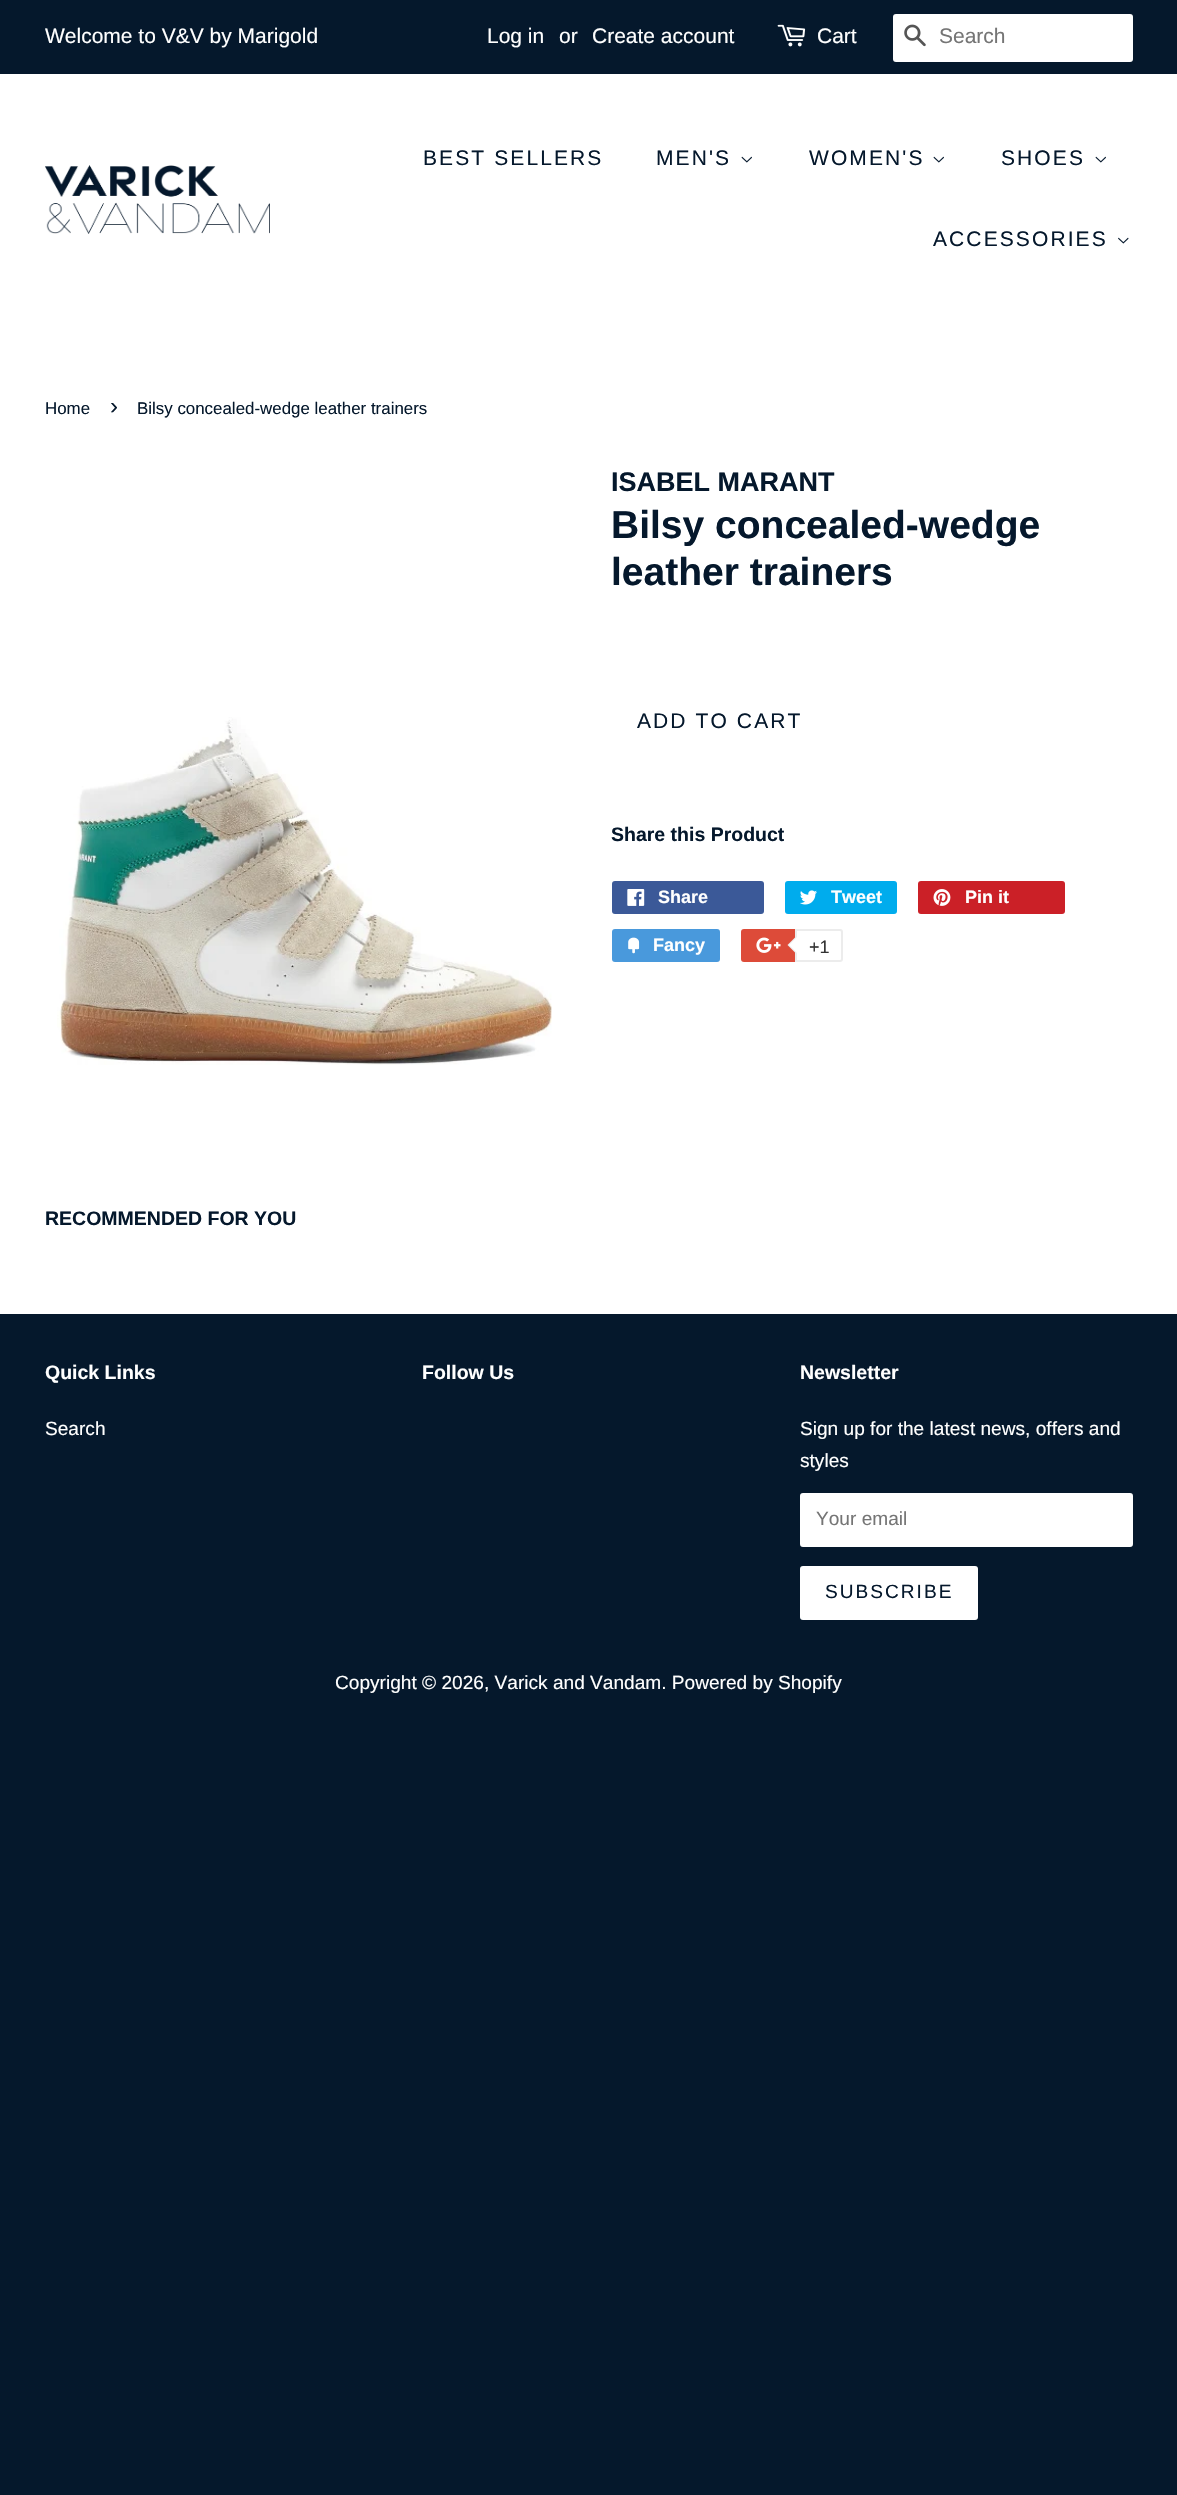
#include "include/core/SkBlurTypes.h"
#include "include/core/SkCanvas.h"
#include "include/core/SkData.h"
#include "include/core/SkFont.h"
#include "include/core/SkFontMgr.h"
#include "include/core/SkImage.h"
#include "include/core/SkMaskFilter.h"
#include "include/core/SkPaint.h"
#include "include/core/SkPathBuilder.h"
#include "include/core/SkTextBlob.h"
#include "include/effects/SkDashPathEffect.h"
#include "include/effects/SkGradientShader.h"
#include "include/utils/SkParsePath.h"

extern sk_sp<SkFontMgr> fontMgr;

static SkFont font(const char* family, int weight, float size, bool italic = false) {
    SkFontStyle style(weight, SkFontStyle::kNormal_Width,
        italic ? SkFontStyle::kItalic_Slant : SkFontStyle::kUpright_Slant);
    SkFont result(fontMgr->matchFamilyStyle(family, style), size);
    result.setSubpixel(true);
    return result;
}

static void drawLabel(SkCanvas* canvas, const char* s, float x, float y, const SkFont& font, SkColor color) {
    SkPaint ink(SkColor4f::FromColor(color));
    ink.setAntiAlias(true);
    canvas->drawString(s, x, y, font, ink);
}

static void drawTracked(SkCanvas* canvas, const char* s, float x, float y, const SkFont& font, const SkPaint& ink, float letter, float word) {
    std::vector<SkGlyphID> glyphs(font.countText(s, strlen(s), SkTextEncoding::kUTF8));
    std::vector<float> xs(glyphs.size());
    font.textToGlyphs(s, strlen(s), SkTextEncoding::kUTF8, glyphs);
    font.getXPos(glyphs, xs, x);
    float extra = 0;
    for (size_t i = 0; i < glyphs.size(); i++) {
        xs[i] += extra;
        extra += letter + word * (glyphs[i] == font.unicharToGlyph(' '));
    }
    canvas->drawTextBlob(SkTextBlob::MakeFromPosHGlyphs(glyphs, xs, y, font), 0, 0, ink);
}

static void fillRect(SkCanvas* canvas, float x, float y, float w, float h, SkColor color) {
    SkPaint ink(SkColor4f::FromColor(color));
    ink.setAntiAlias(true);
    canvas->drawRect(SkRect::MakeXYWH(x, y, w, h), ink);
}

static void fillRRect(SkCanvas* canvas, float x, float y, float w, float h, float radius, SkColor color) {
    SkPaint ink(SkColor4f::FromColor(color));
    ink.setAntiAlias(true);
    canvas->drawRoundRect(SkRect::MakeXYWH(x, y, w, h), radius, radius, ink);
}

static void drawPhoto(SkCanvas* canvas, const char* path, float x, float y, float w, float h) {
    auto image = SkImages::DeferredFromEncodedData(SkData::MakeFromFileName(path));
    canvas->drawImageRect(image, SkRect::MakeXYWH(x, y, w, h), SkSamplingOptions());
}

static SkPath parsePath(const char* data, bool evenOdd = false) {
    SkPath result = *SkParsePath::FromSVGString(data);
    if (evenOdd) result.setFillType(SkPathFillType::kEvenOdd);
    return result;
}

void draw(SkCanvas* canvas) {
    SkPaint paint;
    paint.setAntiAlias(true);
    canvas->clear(0xFF05182C);
    fillRect(canvas, 0, 74, 1177, 1240, 0xFFFFFFFF);
    SkFont font1 = font("Liberation Sans", 400, 21);
    drawLabel(canvas, "Welcome to V&V by Marigold", 45, 43, font1, 0xFFFFFFFF);
    drawLabel(canvas, "Log in", 487, 43, font1, 0xFFFFFFFF);
    drawLabel(canvas, "or", 559, 43, font1, 0xFFFFFFFF);
    drawLabel(canvas, "Create account", 592, 43, font1, 0xFFFFFFFF);
    drawPhoto(canvas, "assets/img1.png", 777, 24, 29, 23);
    drawLabel(canvas, "Cart", 817, 43, font1, 0xFFFFFFFF);
    fillRRect(canvas, 893, 14, 240, 48, 3, 0xFFFFFFFF);
    drawPhoto(canvas, "assets/img2.png", 904, 24, 22, 23);
    drawLabel(canvas, "Search", 939, 43, font1, 0xFF757575);
    drawPhoto(canvas, "assets/img3.png", 45, 165, 225, 69);
    paint.setColor(0xFF05182C);
    drawTracked(canvas, "BEST SELLERS", 423, 165, font1, paint, 2.1f, 0);
    drawTracked(canvas, "MEN'S", 656, 165, font1, paint, 2.1f, 0);
    drawPhoto(canvas, "assets/img4.png", 741, 156, 11, 7);
    drawTracked(canvas, "WOMEN'S", 809, 165, font1, paint, 2.1f, 0);
    drawPhoto(canvas, "assets/img4.png", 933, 156, 11, 7);
    drawTracked(canvas, "SHOES", 1001, 165, font1, paint, 2.1f, 0);
    drawPhoto(canvas, "assets/img4.png", 1095, 156, 11, 7);
    drawTracked(canvas, "ACCESSORIES", 933, 246, font1, paint, 2.1f, 0);
    drawPhoto(canvas, "assets/img5.png", 1118, 237, 11, 7);
    SkFont font2 = font("Liberation Sans", 400, 16.9f);
    drawLabel(canvas, "Home", 45, 414, font2, 0xFF05182C);
    SkFont font3 = font("Liberation Sans", 400, 24);
    drawLabel(canvas, "›", 110, 414, font3, 0xFF05182C);
    drawLabel(canvas, "Bilsy concealed-wedge leather trainers", 137, 414, font2, 0xFF05182C);
    drawPhoto(canvas, "assets/img6.png", 57, 717, 495, 348);
    SkFont font4 = font("Liberation Sans", 700, 27);
    drawLabel(canvas, "ISABEL MARANT", 611, 491, font4, 0xFF05182C);
    SkFont font5 = font("Liberation Sans", 700, 39);
    drawLabel(canvas, "Bilsy concealed-wedge", 611, 538, font5, 0xFF05182C);
    drawLabel(canvas, "leather trainers", 611, 585, font5, 0xFF05182C);
    drawTracked(canvas, "ADD TO CART", 637, 728, font1, paint, 2.1f, 0);
    SkFont font6 = font("Liberation Sans", 700, 19.5f);
    drawLabel(canvas, "Share this Product", 611, 841, font6, 0xFF05182C);
    fillRRect(canvas, 612, 881, 152, 33, 3, 0xFF3B5998);
    drawPhoto(canvas, "assets/img7.png", 627, 889, 18, 17);
    SkFont font7 = font("Liberation Sans", 700, 18);
    drawLabel(canvas, "Share", 658, 903, font7, 0xFFFFFFFF);
    fillRRect(canvas, 785, 881, 112, 33, 3, 0xFF00ACED);
    drawPhoto(canvas, "assets/img8.png", 800, 890, 17, 15);
    drawLabel(canvas, "Tweet", 831, 903, font7, 0xFFFFFFFF);
    fillRRect(canvas, 918, 881, 147, 33, 3, 0xFFCB2027);
    drawPhoto(canvas, "assets/img9.png", 933, 889, 18, 17);
    drawLabel(canvas, "Pin it", 965, 903, font7, 0xFFFFFFFF);
    fillRRect(canvas, 612, 929, 108, 33, 3, 0xFF4999DC);
    drawPhoto(canvas, "assets/img10.png", 628, 937, 12, 17);
    drawLabel(canvas, "Fancy", 653, 951, font7, 0xFFFFFFFF);
    fillRRect(canvas, 741, 929, 99, 33, 3, 0xFFDD4B39);
    drawPhoto(canvas, "assets/img11.png", 756, 937, 25, 16);
    paint.setColor(0xFFFFFFFF);
    canvas->drawPath(parsePath("M796 930H840C841 930 842 931 842 932V959C842 960 841 961 840 961H796Z"), paint);
    paint.setStroke(true);
    paint.setStrokeWidth(2);
    paint.setColor(0xFFECECEC);
    canvas->drawPath(parsePath("M796 930H840C841 930 842 931 842 932V959C842 960 841 961 840 961H796Z"), paint);
    paint.setStroke(false);
    canvas->drawPath(parsePath("M796.5 936V954L787.5 945Z"), paint);
    paint.setColor(0xFFFFFFFF);
    canvas->drawPath(parsePath("M798 936V954L789 945Z"), paint);
    SkFont font8 = font("Liberation Sans", 400, 18);
    drawLabel(canvas, "+1", 809, 953, font8, 0xFF333333);
    drawLabel(canvas, "RECOMMENDED FOR YOU", 45, 1225, font6, 0xFF05182C);
    drawLabel(canvas, "Quick Links", 45, 1379, font6, 0xFFFFFFFF);
    SkFont font9 = font("Liberation Sans", 400, 19.1f);
    drawLabel(canvas, "Search", 45, 1435, font9, 0xFFFFFFFF);
    drawLabel(canvas, "Follow Us", 422, 1379, font6, 0xFFFFFFFF);
    drawLabel(canvas, "Newsletter", 800, 1379, font6, 0xFFFFFFFF);
    drawLabel(canvas, "Sign up for the latest news, offers and", 800, 1435, font9, 0xFFFFFFFF);
    drawLabel(canvas, "styles", 800, 1467, font9, 0xFFFFFFFF);
    canvas->drawRoundRect(SkRect::MakeXYWH(801, 1494, 331, 52), 2, 2, paint);
    paint.setStroke(true);
    canvas->drawRoundRect(SkRect::MakeXYWH(801, 1494, 331, 52), 2, 2, paint);
    drawLabel(canvas, "Your email", 816, 1525, font9, 0xFF757575);
    fillRRect(canvas, 800, 1566, 178, 54, 3, 0xFFFFFFFF);
    paint.setStroke(false);
    paint.setColor(0xFF05182C);
    drawTracked(canvas, "SUBSCRIBE", 825, 1598, font9, paint, 2, 0);
    drawLabel(canvas, "Copyright © 2026, Varick and Vandam. Powered by Shopify", 335, 1689, font9, 0xFFFFFFFF);
}
